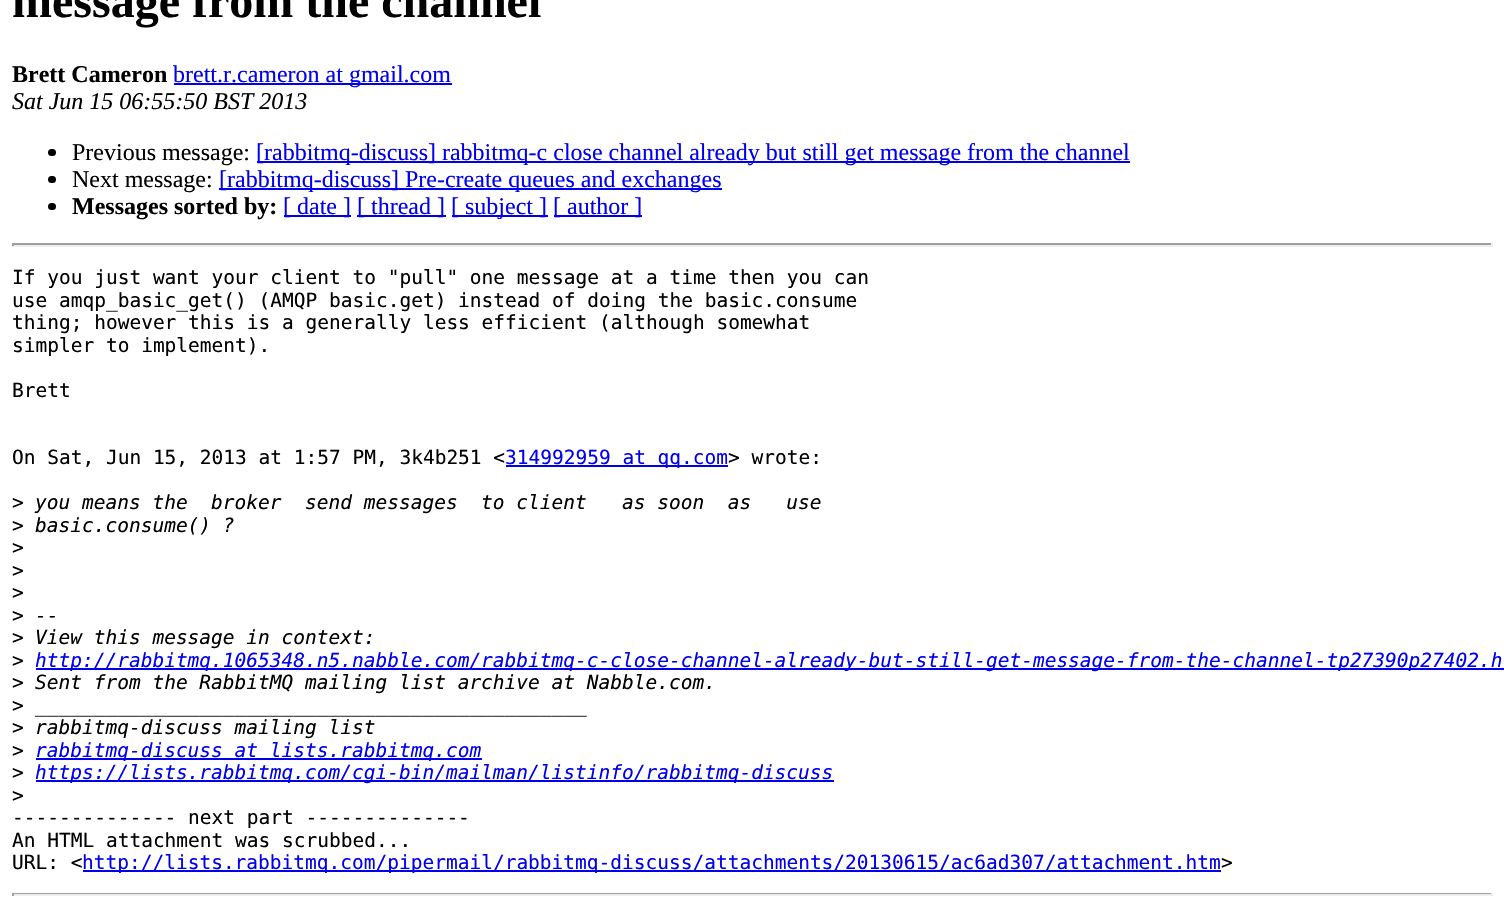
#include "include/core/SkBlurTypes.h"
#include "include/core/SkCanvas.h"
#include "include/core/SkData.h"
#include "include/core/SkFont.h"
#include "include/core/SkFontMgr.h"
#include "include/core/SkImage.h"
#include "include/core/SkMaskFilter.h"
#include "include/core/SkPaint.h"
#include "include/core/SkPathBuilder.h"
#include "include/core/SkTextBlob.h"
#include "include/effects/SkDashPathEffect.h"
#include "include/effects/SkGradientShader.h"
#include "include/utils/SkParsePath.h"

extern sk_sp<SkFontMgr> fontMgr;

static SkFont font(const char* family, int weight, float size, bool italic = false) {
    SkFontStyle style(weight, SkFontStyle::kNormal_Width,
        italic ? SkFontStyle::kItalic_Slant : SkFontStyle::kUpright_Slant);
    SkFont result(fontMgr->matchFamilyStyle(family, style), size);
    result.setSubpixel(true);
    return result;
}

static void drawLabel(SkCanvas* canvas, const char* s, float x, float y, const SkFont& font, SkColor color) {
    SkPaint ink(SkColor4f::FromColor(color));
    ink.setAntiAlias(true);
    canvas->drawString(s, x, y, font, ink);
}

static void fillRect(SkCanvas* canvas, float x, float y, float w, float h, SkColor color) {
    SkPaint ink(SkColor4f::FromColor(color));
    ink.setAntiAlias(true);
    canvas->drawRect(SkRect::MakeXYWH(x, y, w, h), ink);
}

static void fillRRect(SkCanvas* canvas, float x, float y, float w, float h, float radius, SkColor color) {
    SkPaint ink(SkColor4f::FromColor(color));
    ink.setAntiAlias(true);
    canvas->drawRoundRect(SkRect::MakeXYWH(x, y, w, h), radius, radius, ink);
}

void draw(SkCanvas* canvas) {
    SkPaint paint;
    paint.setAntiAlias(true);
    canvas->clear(0xFFFFFFFF);
    SkFont font1 = font("Liberation Serif", 700, 48);
    drawLabel(canvas, "message from the channel", 12, 17, font1, 0xFF000000);
    SkFont font2 = font("Liberation Serif", 700, 24);
    drawLabel(canvas, "Brett Cameron", 12, 82, font2, 0xFF000000);
    fillRect(canvas, 174, 83, 278, 2, 0xFF0000EE);
    SkFont font3 = font("Liberation Serif", 400, 24);
    drawLabel(canvas, "brett.r.cameron at gmail.com", 173, 82, font3, 0xFF0000EE);
    SkFont font4 = font("Liberation Serif", 400, 24, true);
    drawLabel(canvas, "Sat Jun 15 06:55:50 BST 2013", 12, 109, font4, 0xFF000000);
    fillRRect(canvas, 48, 149, 8, 7, 3.5f, 0xFF000000);
    drawLabel(canvas, "Previous message:", 72, 160, font3, 0xFF000000);
    fillRect(canvas, 257, 161, 873, 2, 0xFF0000EE);
    drawLabel(canvas, "[rabbitmq-discuss] rabbitmq-c close channel already but still get message from the channel", 256, 160, font3, 0xFF0000EE);
    fillRRect(canvas, 48, 176, 8, 7, 3.5f, 0xFF000000);
    drawLabel(canvas, "Next message:", 72, 187, font3, 0xFF000000);
    fillRect(canvas, 219, 188, 503, 2, 0xFF0000EE);
    drawLabel(canvas, "[rabbitmq-discuss] Pre-create queues and exchanges", 219, 187, font3, 0xFF0000EE);
    fillRRect(canvas, 48, 203, 8, 7, 3.5f, 0xFF000000);
    drawLabel(canvas, "Messages sorted by:", 72, 214, font2, 0xFF000000);
    fillRect(canvas, 284, 215, 67, 2, 0xFF0000EE);
    drawLabel(canvas, "[ date ]", 283, 214, font3, 0xFF0000EE);
    fillRect(canvas, 357, 215, 89, 2, 0xFF0000EE);
    drawLabel(canvas, "[ thread ]", 357, 214, font3, 0xFF0000EE);
    fillRect(canvas, 452, 215, 96, 2, 0xFF0000EE);
    drawLabel(canvas, "[ subject ]", 451, 214, font3, 0xFF0000EE);
    fillRect(canvas, 554, 215, 88, 2, 0xFF0000EE);
    drawLabel(canvas, "[ author ]", 553, 214, font3, 0xFF0000EE);
    fillRect(canvas, 12, 243, 1481, 2, 0xFF9F9F9F);
    fillRect(canvas, 1491, 243, 2, 3, 0xFFEEEEEE);
    fillRect(canvas, 12, 245, 1481, 2, 0xFFEEEEEE);
    fillRect(canvas, 12, 243, 2, 3, 0xFF9F9F9F);
    SkFont font5 = font("DejaVu Sans Mono", 400, 19.5f);
    drawLabel(canvas, "If you just want your client to \"pull\" one message at a time then you can", 12, 284, font5, 0xFF000000);
    drawLabel(canvas, "use amqp_basic_get() (AMQP basic.get) instead of doing the basic.consume", 12, 307, font5, 0xFF000000);
    drawLabel(canvas, "thing; however this is a generally less efficient (although somewhat", 12, 329, font5, 0xFF000000);
    drawLabel(canvas, "simpler to implement).", 12, 352, font5, 0xFF000000);
    drawLabel(canvas, "Brett", 12, 397, font5, 0xFF000000);
    drawLabel(canvas, "On Sat, Jun 15, 2013 at 1:57 PM, 3k4b251 <", 12, 464, font5, 0xFF000000);
    fillRect(canvas, 506, 465, 222, 2, 0xFF0000EE);
    drawLabel(canvas, "314992959 at qq.com", 505, 464, font5, 0xFF0000EE);
    drawLabel(canvas, "> wrote:", 728, 464, font5, 0xFF000000);
    drawLabel(canvas, ">", 12, 509, font5, 0xFF000000);
    SkFont font6 = font("DejaVu Sans Mono", 400, 19.5f, true);
    drawLabel(canvas, "you means the  broker  send messages  to client   as soon  as   use", 35, 509, font6, 0xFF000000);
    drawLabel(canvas, ">", 12, 532, font5, 0xFF000000);
    drawLabel(canvas, "basic.consume() ?", 35, 532, font6, 0xFF000000);
    drawLabel(canvas, ">", 12, 554, font5, 0xFF000000);
    drawLabel(canvas, ">", 12, 577, font5, 0xFF000000);
    drawLabel(canvas, ">", 12, 599, font5, 0xFF000000);
    drawLabel(canvas, ">", 12, 622, font5, 0xFF000000);
    drawLabel(canvas, "--", 35, 622, font6, 0xFF000000);
    drawLabel(canvas, ">", 12, 644, font5, 0xFF000000);
    drawLabel(canvas, "View this message in context:", 35, 644, font6, 0xFF000000);
    drawLabel(canvas, ">", 12, 667, font5, 0xFF000000);
    fillRect(canvas, 36, 668, 1468, 2, 0xFF0000EE);
    drawLabel(canvas, "http://rabbitmq.1065348.n5.nabble.com/rabbitmq-c-close-channel-already-but-still-get-message-from-the-channel-tp27390p27402.h", 35, 667, font6, 0xFF0000EE);
    drawLabel(canvas, ">", 12, 689, font5, 0xFF000000);
    drawLabel(canvas, "Sent from the RabbitMQ mailing list archive at Nabble.com.", 35, 689, font6, 0xFF000000);
    drawLabel(canvas, ">", 12, 712, font5, 0xFF000000);
    drawLabel(canvas, "_______________________________________________", 35, 712, font6, 0xFF000000);
    drawLabel(canvas, ">", 12, 734, font5, 0xFF000000);
    drawLabel(canvas, "rabbitmq-discuss mailing list", 35, 734, font6, 0xFF000000);
    drawLabel(canvas, ">", 12, 757, font5, 0xFF000000);
    fillRect(canvas, 36, 758, 446, 2, 0xFF0000EE);
    drawLabel(canvas, "rabbitmq-discuss at lists.rabbitmq.com", 35, 757, font6, 0xFF0000EE);
    drawLabel(canvas, ">", 12, 779, font5, 0xFF000000);
    fillRect(canvas, 36, 780, 798, 2, 0xFF0000EE);
    drawLabel(canvas, "https://lists.rabbitmq.com/cgi-bin/mailman/listinfo/rabbitmq-discuss", 35, 779, font6, 0xFF0000EE);
    drawLabel(canvas, ">", 12, 802, font5, 0xFF000000);
    drawLabel(canvas, "-------------- next part --------------", 12, 824, font5, 0xFF000000);
    drawLabel(canvas, "An HTML attachment was scrubbed...", 12, 847, font5, 0xFF000000);
    drawLabel(canvas, "URL: <", 12, 869, font5, 0xFF000000);
    fillRect(canvas, 83, 870, 1138, 2, 0xFF0000EE);
    drawLabel(canvas, "http://lists.rabbitmq.com/pipermail/rabbitmq-discuss/attachments/20130615/ac6ad307/attachment.htm", 82, 869, font5, 0xFF0000EE);
    drawLabel(canvas, ">", 1221, 869, font5, 0xFF000000);
    fillRect(canvas, 12, 893, 1481, 1, 0xFF9F9F9F);
    fillRect(canvas, 1491, 893, 2, 3, 0xFFEEEEEE);
    fillRect(canvas, 12, 894, 1481, 2, 0xFFEEEEEE);
    fillRect(canvas, 12, 893, 2, 3, 0xFF9F9F9F);
}
